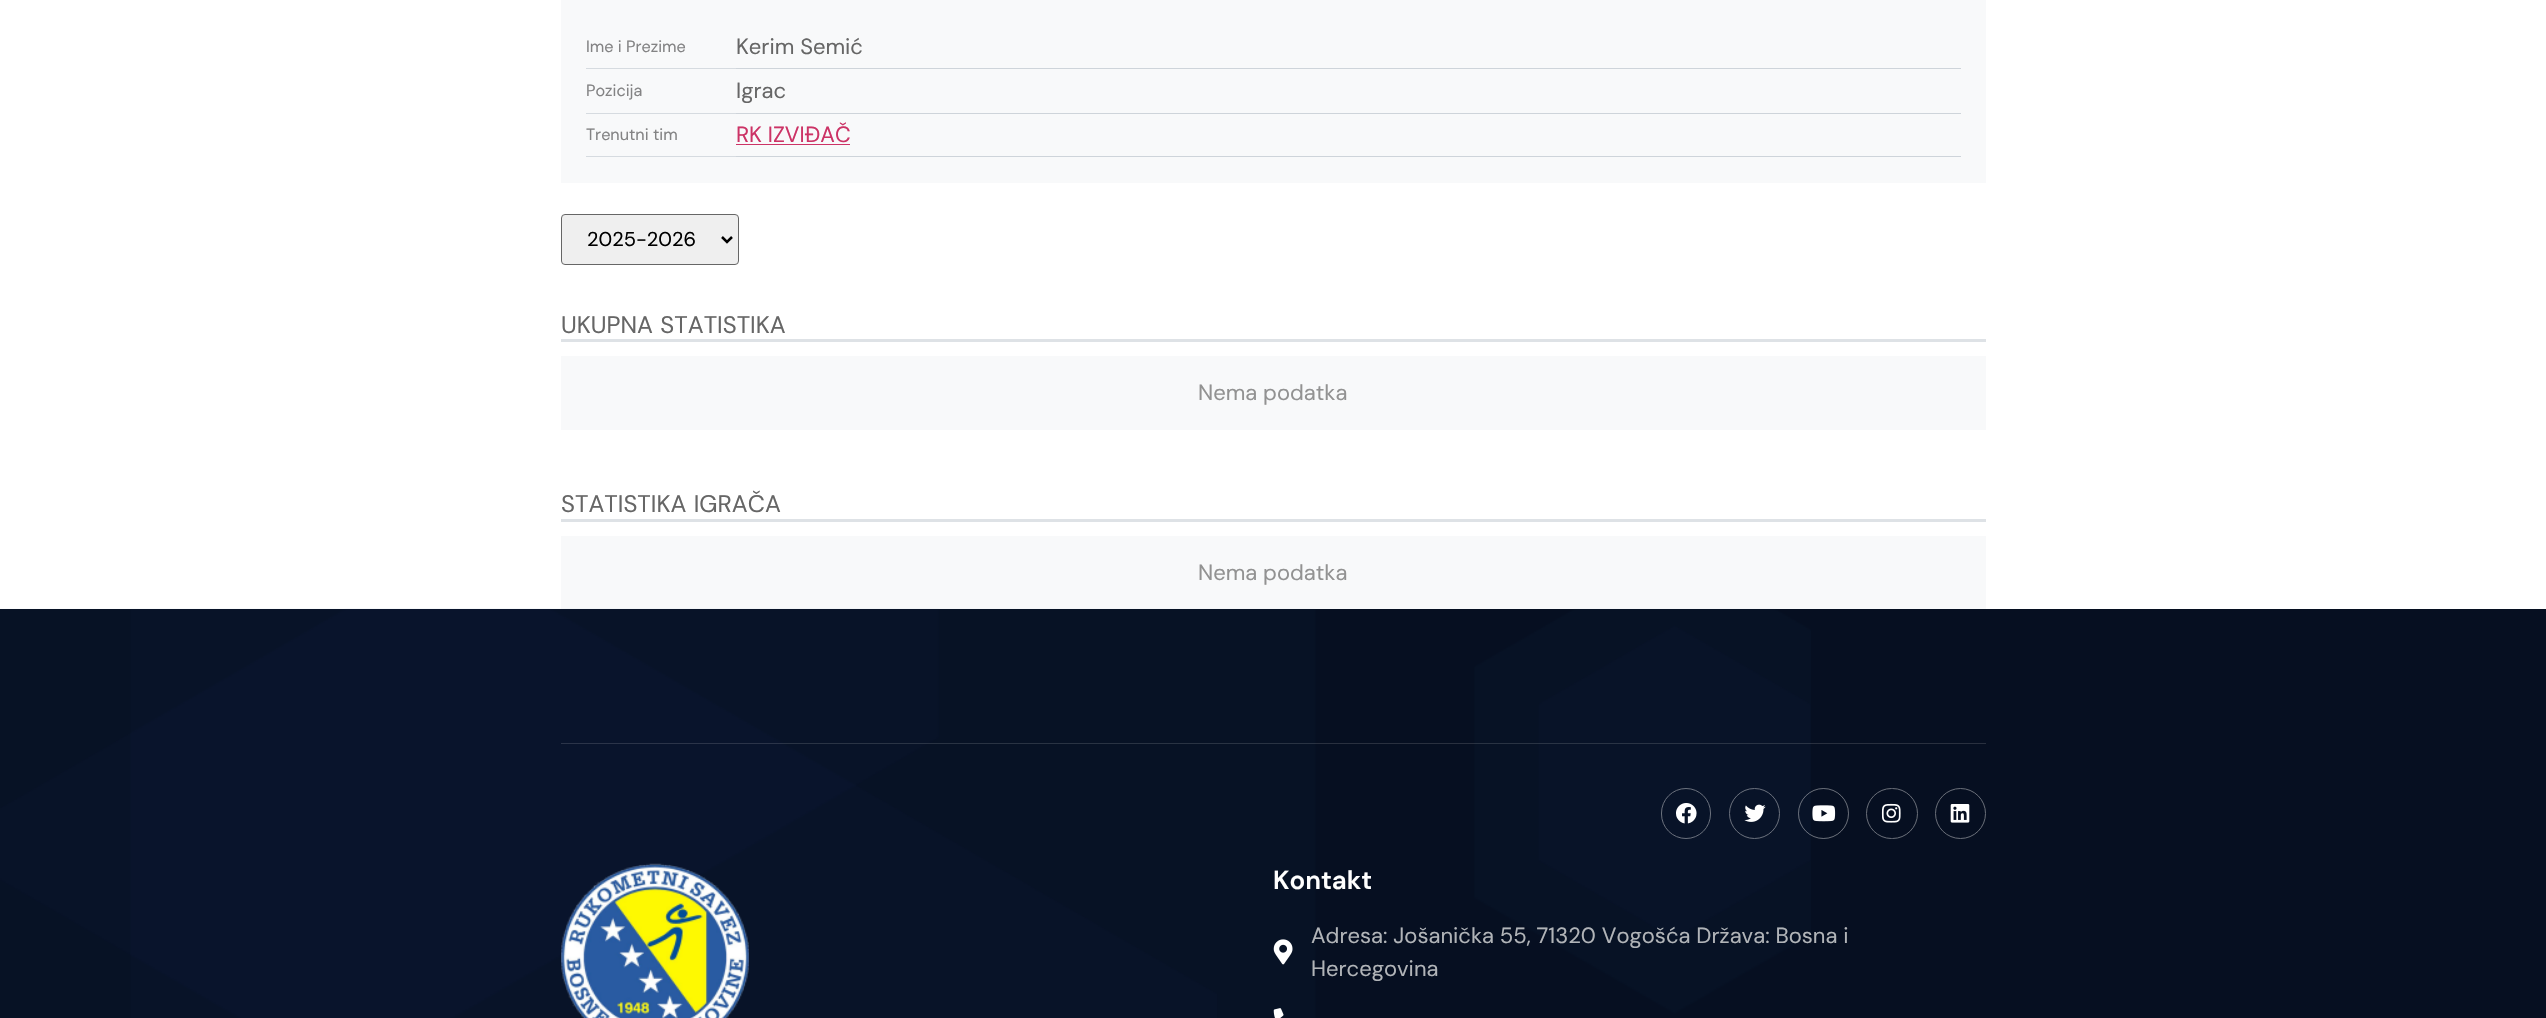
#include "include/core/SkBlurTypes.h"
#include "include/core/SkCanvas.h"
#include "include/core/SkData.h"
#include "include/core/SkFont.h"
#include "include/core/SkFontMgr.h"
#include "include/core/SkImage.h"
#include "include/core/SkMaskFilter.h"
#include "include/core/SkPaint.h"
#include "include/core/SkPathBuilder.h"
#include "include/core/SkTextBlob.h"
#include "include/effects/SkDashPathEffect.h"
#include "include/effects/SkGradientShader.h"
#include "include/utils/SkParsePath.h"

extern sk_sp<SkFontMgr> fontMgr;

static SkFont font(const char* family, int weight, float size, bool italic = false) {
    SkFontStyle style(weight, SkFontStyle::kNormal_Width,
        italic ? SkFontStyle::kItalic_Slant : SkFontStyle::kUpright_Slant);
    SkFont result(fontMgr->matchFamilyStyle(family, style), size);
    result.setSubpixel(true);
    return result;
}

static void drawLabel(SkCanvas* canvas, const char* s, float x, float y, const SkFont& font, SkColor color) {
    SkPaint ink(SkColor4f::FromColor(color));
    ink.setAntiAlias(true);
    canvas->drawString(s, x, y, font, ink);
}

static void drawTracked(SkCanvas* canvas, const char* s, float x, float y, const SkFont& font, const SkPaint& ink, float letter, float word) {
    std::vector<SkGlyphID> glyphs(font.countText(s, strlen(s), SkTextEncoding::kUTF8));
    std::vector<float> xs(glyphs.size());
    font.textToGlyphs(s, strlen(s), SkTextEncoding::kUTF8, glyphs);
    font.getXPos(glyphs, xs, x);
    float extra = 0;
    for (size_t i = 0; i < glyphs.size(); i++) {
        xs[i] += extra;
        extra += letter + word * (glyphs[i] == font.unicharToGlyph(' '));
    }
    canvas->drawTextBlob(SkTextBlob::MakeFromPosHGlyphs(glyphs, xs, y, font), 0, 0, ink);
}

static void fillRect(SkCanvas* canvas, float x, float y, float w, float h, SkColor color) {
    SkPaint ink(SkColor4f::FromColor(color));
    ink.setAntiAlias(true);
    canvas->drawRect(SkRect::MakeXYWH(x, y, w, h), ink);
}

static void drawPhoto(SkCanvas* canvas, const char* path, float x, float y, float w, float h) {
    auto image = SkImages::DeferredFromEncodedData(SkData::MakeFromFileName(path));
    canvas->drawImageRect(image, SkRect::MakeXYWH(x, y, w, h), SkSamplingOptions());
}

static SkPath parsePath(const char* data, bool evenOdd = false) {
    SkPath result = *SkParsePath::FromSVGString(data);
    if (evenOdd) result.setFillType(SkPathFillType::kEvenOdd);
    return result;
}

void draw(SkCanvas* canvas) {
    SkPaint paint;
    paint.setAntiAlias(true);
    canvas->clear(0xFFFFFFFF);
    fillRect(canvas, 561, 0, 1425, 183, 0xFFF8F9FA);
    fillRect(canvas, 586, 68, 150, 1, 0xFFD6DBE0);
    SkFont font1 = font("DM Sans", 400, 16.25f);
    drawLabel(canvas, "Ime i Prezime", 586, 52, font1, 0xFF838384);
    fillRect(canvas, 736, 68, 1225, 1, 0xFFCED4DA);
    SkFont font2 = font("DM Sans", 400, 22);
    drawLabel(canvas, "Kerim Semić", 736, 54, font2, 0xFF666666);
    fillRect(canvas, 586, 113, 150, 1, 0xFFD6DBE0);
    drawLabel(canvas, "Pozicija", 586, 96, font1, 0xFF838384);
    fillRect(canvas, 736, 113, 1225, 1, 0xFFCED4DA);
    drawLabel(canvas, "Igrac", 736, 98, font2, 0xFF666666);
    fillRect(canvas, 586, 156, 150, 1, 0xFFD6DBE0);
    drawLabel(canvas, "Trenutni tim", 586, 140, font1, 0xFF838384);
    fillRect(canvas, 736, 156, 1225, 1, 0xFFCED4DA);
    drawLabel(canvas, "RK IZVIĐAČ", 736, 142, font2, 0xFFCC3366);
    fillRect(canvas, 736, 144, 114, 1, 0xFFCC3366);
    paint.setColor(0xFFEFEFEF);
    canvas->drawRoundRect(SkRect::MakeXYWH(561.5f, 214.5f, 177, 50), 3.5f, 3.5f, paint);
    paint.setStroke(true);
    paint.setStrokeWidth(1);
    paint.setColor(0xFF666666);
    canvas->drawRoundRect(SkRect::MakeXYWH(561.5f, 214.5f, 177, 50), 3.5f, 3.5f, paint);
    paint.setStrokeWidth(2.5f);
    paint.setColor(0xFF000000);
    canvas->drawPath(parsePath("M722 237L727 242L732 237"), paint);
    SkFont font3 = font("DM Sans", 400, 20);
    drawLabel(canvas, "2025-2026", 587, 246, font3, 0xFF000000);
    fillRect(canvas, 561, 339, 1425, 3, 0xFFDEE2E6);
    SkFont font4 = font("DM Sans", 400, 24);
    paint.setStroke(false);
    paint.setColor(0xFF666666);
    drawTracked(canvas, "UKUPNA STATISTIKA", 561, 333, font4, paint, 0, 1);
    fillRect(canvas, 561, 356, 1425, 74, 0xFFF8F9FA);
    drawLabel(canvas, "Nema podatka", 1198, 400, font2, 0xFF929292);
    fillRect(canvas, 561, 519, 1425, 3, 0xFFDEE2E6);
    drawTracked(canvas, "STATISTIKA IGRAČA", 561, 512, font4, paint, 0, 1);
    fillRect(canvas, 561, 536, 1425, 73, 0xFFF8F9FA);
    drawLabel(canvas, "Nema podatka", 1198, 580, font2, 0xFF929292);
    fillRect(canvas, 0, 609, 2546, 409, 0xFF060F21);
    drawPhoto(canvas, "assets/img1.png", 0, 608, 1811, 410);
    fillRect(canvas, 561, 743, 1425, 1, 0x26EAEAEA);
    paint.setStroke(true);
    paint.setStrokeWidth(1);
    paint.setColor(0xFF6B717D);
    canvas->drawRoundRect(SkRect::MakeXYWH(1661.5f, 788.5f, 49, 50), 24.5f, 24.5f, paint);
    drawPhoto(canvas, "assets/img2.png", 1676, 803, 21, 21);
    canvas->drawCircle(1754.5f, 813.5f, 25, paint);
    drawPhoto(canvas, "assets/img3.png", 1744, 804, 22, 18);
    paint.setColor(0x70EAEAEA);
    canvas->drawCircle(1823.5f, 813.5f, 25, paint);
    drawPhoto(canvas, "assets/img4.png", 1812, 805, 24, 17);
    paint.setColor(0xFF6A6F79);
    canvas->drawRoundRect(SkRect::MakeXYWH(1866.5f, 788.5f, 51, 50), 25, 25, paint);
    drawPhoto(canvas, "assets/img5.png", 1881, 803, 20, 20);
    canvas->drawCircle(1960.5f, 813.5f, 25, paint);
    drawPhoto(canvas, "assets/img6.png", 1950, 804, 20, 19);
    drawPhoto(canvas, "assets/img7.png", 561, 863, 188, 155);
    SkFont font5 = font("DM Sans", 600, 26);
    drawLabel(canvas, "Kontakt", 1273, 889, font5, 0xFFFFFFFF);
    drawPhoto(canvas, "assets/img8.png", 1273, 939, 20, 26);
    drawLabel(canvas, "Adresa: Jošanička 55, 71320 Vogošća Država: Bosna i", 1311, 943, font2, 0xFFB1B4B8);
    drawLabel(canvas, "Hercegovina", 1311, 976, font2, 0xFFB1B4B8);
    drawPhoto(canvas, "assets/img9.png", 1273, 1008, 11, 10);
}
